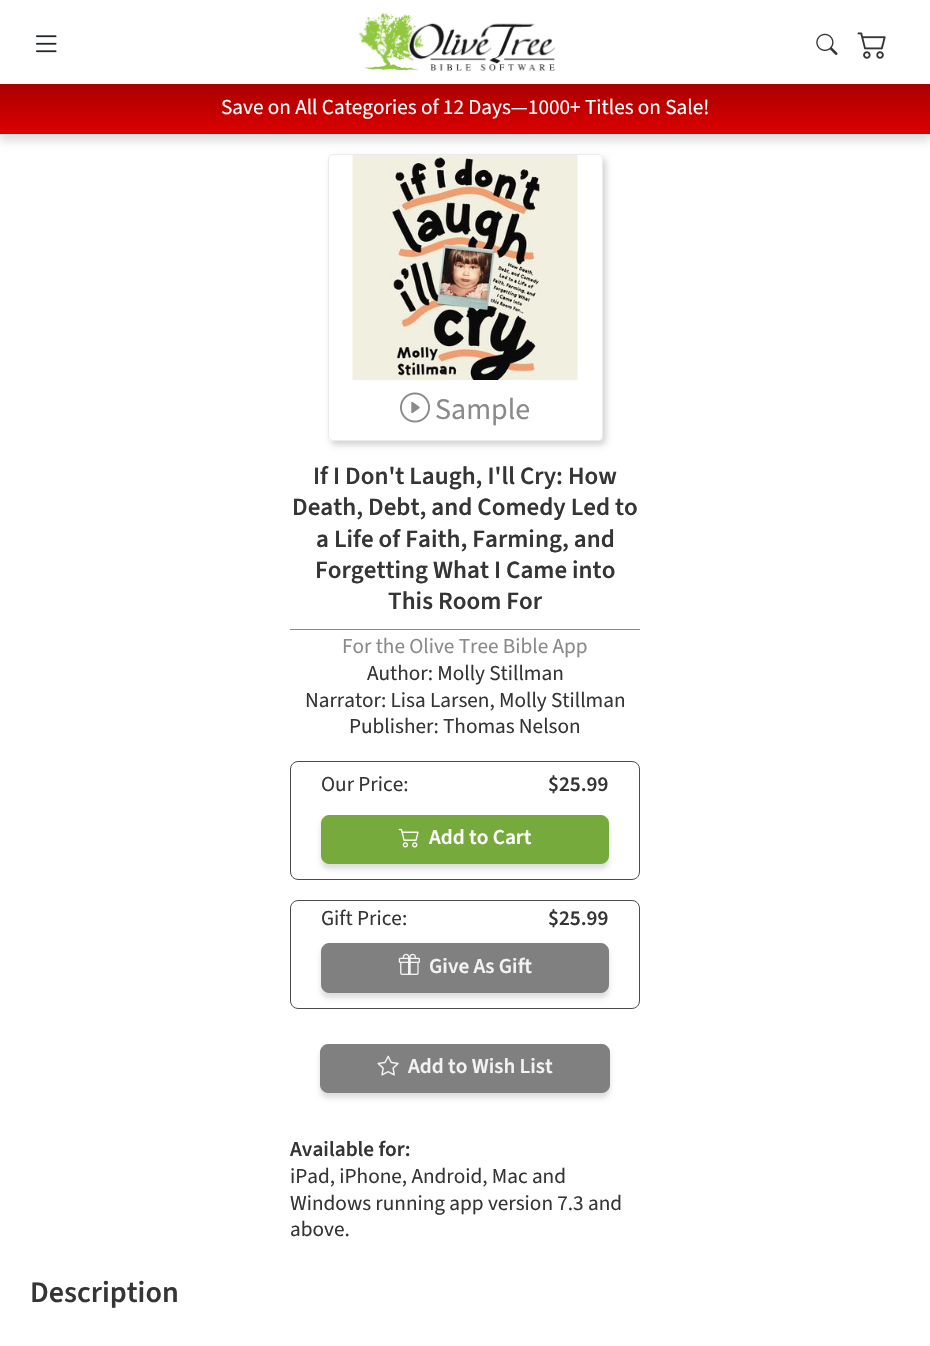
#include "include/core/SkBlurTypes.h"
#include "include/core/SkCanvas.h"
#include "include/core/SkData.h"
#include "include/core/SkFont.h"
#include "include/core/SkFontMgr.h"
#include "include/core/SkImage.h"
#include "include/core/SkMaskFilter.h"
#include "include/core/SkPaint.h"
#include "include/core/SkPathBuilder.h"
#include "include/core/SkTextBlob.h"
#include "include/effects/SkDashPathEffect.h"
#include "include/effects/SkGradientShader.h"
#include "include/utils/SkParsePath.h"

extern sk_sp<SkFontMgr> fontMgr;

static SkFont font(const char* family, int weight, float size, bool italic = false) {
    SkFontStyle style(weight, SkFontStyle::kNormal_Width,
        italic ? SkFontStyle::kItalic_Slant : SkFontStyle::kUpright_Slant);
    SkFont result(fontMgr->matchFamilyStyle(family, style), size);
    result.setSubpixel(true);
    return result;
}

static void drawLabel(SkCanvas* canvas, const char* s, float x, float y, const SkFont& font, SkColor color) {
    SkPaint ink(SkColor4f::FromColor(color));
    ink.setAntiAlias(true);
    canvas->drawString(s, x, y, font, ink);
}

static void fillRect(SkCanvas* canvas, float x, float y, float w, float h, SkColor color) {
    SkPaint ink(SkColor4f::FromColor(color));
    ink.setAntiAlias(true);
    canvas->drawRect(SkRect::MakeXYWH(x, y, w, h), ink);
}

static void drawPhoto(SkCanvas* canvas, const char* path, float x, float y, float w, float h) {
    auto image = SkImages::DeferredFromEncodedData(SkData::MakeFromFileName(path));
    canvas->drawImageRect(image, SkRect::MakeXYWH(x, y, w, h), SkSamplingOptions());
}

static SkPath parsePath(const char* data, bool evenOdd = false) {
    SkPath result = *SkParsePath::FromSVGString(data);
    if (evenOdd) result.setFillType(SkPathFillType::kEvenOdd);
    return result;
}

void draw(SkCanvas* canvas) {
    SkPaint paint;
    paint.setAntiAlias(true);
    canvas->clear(0xFFFFFFFF);
    drawPhoto(canvas, "assets/img1.png", 36, 35, 21, 18);
    drawPhoto(canvas, "assets/img2.png", 358, 12, 197, 59);
    drawPhoto(canvas, "assets/img3.png", 816, 33, 22, 22);
    drawPhoto(canvas, "assets/img4.png", 857, 32, 29, 27);
    paint.setColor(0x21000000);
    paint.setMaskFilter(SkMaskFilter::MakeBlur(kNormal_SkBlurStyle, 4));
    canvas->drawRect(SkRect::MakeXYWH(0, 91, 930, 50), paint);
    paint.setMaskFilter(nullptr);
    {
        const SkColor colors[] = {0xFFAA0000, 0xFFDB0000};
        const float stops[] = {0, 1};
        const SkPoint ends[] = {{465, 84}, {465, 134}};
        paint.setShader(SkGradientShader::MakeLinear(ends, colors, stops, 2, SkTileMode::kClamp));
        paint.setAlpha(255);
    }
    canvas->drawRect(SkRect::MakeXYWH(0, 84, 930, 50), paint);
    SkFont font1 = font("Source Sans 3", 400, 21.25f);
    drawLabel(canvas, "Save on All Categories of 12 Days—1000+ Titles on Sale!", 221, 114, font1, 0xFFFFFFFF);
    canvas->save();
    canvas->clipPath(parsePath("M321 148H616V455H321ZM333 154H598C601 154 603 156 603 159V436C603 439 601 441 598 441H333C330 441 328 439 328 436V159C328 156 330 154 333 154Z", true), true);
    paint.setShader(nullptr);
    paint.setColor(0xFFD3D3D3);
    paint.setMaskFilter(SkMaskFilter::MakeBlur(kNormal_SkBlurStyle, 3));
    canvas->drawRoundRect(SkRect::MakeXYWH(331, 158, 275, 287), 5, 5, paint);
    paint.setMaskFilter(nullptr);
    canvas->restore();
    paint.setStroke(true);
    paint.setStrokeWidth(1);
    paint.setColor(0x14000000);
    canvas->drawRoundRect(SkRect::MakeXYWH(328.5f, 154.5f, 274, 286), 4.5f, 4.5f, paint);
    drawPhoto(canvas, "assets/img5.png", 352, 155, 226, 225);
    drawPhoto(canvas, "assets/img6.png", 400, 392, 30, 31);
    SkFont font2 = font("Source Sans 3", 400, 30);
    drawLabel(canvas, "Sample", 435, 419, font2, 0xFF8A8A8A);
    SkFont font3 = font("Source Sans 3", 600, 25);
    drawLabel(canvas, "If I Don't Laugh, I'll Cry: How", 313, 484, font3, 0xFF353535);
    drawLabel(canvas, "Death, Debt, and Comedy Led to", 292, 515, font3, 0xFF353535);
    drawLabel(canvas, "a Life of Faith, Farming, and", 316, 547, font3, 0xFF353535);
    drawLabel(canvas, "Forgetting What I Came into", 315, 578, font3, 0xFF353535);
    drawLabel(canvas, "This Room For", 388, 609, font3, 0xFF353535);
    fillRect(canvas, 290, 629, 350, 1, 0xFF8A8A8A);
    drawLabel(canvas, "For the Olive Tree Bible App", 342, 653, font1, 0xFF8A8A8A);
    drawLabel(canvas, "Author: Molly Stillman", 367, 680, font1, 0xFF353535);
    drawLabel(canvas, "Narrator: Lisa Larsen, Molly Stillman", 305, 707, font1, 0xFF353535);
    drawLabel(canvas, "Publisher: Thomas Nelson", 349, 733, font1, 0xFF353535);
    paint.setColor(0xFF4B4B4B);
    canvas->drawRoundRect(SkRect::MakeXYWH(290.5f, 761.5f, 349, 118), 7.5f, 7.5f, paint);
    drawLabel(canvas, "Our Price:", 321, 791, font1, 0xFF353535);
    SkFont font4 = font("Source Sans 3", 600, 21.25f);
    drawLabel(canvas, "$25.99", 548, 791, font4, 0xFF353535);
    paint.setStroke(false);
    paint.setColor(0x21000000);
    paint.setMaskFilter(SkMaskFilter::MakeBlur(kNormal_SkBlurStyle, 2.5f));
    canvas->drawRoundRect(SkRect::MakeXYWH(321, 820, 288, 49), 8, 8, paint);
    paint.setMaskFilter(nullptr);
    paint.setColor(0xFF77AA3C);
    canvas->drawRoundRect(SkRect::MakeXYWH(321.5f, 815.5f, 287, 48), 7.5f, 7.5f, paint);
    paint.setStroke(true);
    canvas->drawRoundRect(SkRect::MakeXYWH(321.5f, 815.5f, 287, 48), 7.5f, 7.5f, paint);
    drawPhoto(canvas, "assets/img7.png", 398, 828, 21, 20);
    drawLabel(canvas, "Add to Cart", 429, 844, font4, 0xFFFFFFFF);
    paint.setColor(0xFF4B4B4B);
    canvas->drawRoundRect(SkRect::MakeXYWH(290.5f, 900.5f, 349, 108), 7.5f, 7.5f, paint);
    drawLabel(canvas, "Gift Price:", 321, 925, font1, 0xFF353535);
    drawLabel(canvas, "$25.99", 548, 925, font4, 0xFF353535);
    paint.setStroke(false);
    paint.setColor(0x21000000);
    paint.setMaskFilter(SkMaskFilter::MakeBlur(kNormal_SkBlurStyle, 2.5f));
    canvas->drawRoundRect(SkRect::MakeXYWH(321, 948, 288, 50), 8, 8, paint);
    paint.setMaskFilter(nullptr);
    paint.setColor(0xFF808080);
    canvas->drawRoundRect(SkRect::MakeXYWH(321.5f, 943.5f, 287, 49), 7.5f, 7.5f, paint);
    paint.setStroke(true);
    canvas->drawRoundRect(SkRect::MakeXYWH(321.5f, 943.5f, 287, 49), 7.5f, 7.5f, paint);
    drawPhoto(canvas, "assets/img8.png", 398, 953, 22, 22);
    drawLabel(canvas, "Give As Gift", 429, 973, font4, 0xFFF3F3F3);
    paint.setStroke(false);
    paint.setColor(0x21000000);
    paint.setMaskFilter(SkMaskFilter::MakeBlur(kNormal_SkBlurStyle, 2.5f));
    canvas->drawRoundRect(SkRect::MakeXYWH(320, 1049, 290, 49), 8, 8, paint);
    paint.setMaskFilter(nullptr);
    paint.setColor(0xFF808080);
    canvas->drawRoundRect(SkRect::MakeXYWH(320.5f, 1044.5f, 289, 48), 7.5f, 7.5f, paint);
    paint.setStroke(true);
    canvas->drawRoundRect(SkRect::MakeXYWH(320.5f, 1044.5f, 289, 48), 7.5f, 7.5f, paint);
    drawPhoto(canvas, "assets/img9.png", 377, 1055, 22, 21);
    drawLabel(canvas, "Add to Wish List", 408, 1073, font4, 0xFFF3F3F3);
    drawLabel(canvas, "Available for:", 290, 1156, font4, 0xFF353535);
    drawLabel(canvas, "iPad, iPhone, Android, Mac and", 290, 1183, font1, 0xFF353535);
    drawLabel(canvas, "Windows running app version 7.3 and", 290, 1210, font1, 0xFF353535);
    drawLabel(canvas, "above.", 290, 1236, font1, 0xFF353535);
    SkFont font5 = font("Source Sans 3", 600, 30);
    drawLabel(canvas, "Description", 30, 1302, font5, 0xFF353535);
}
